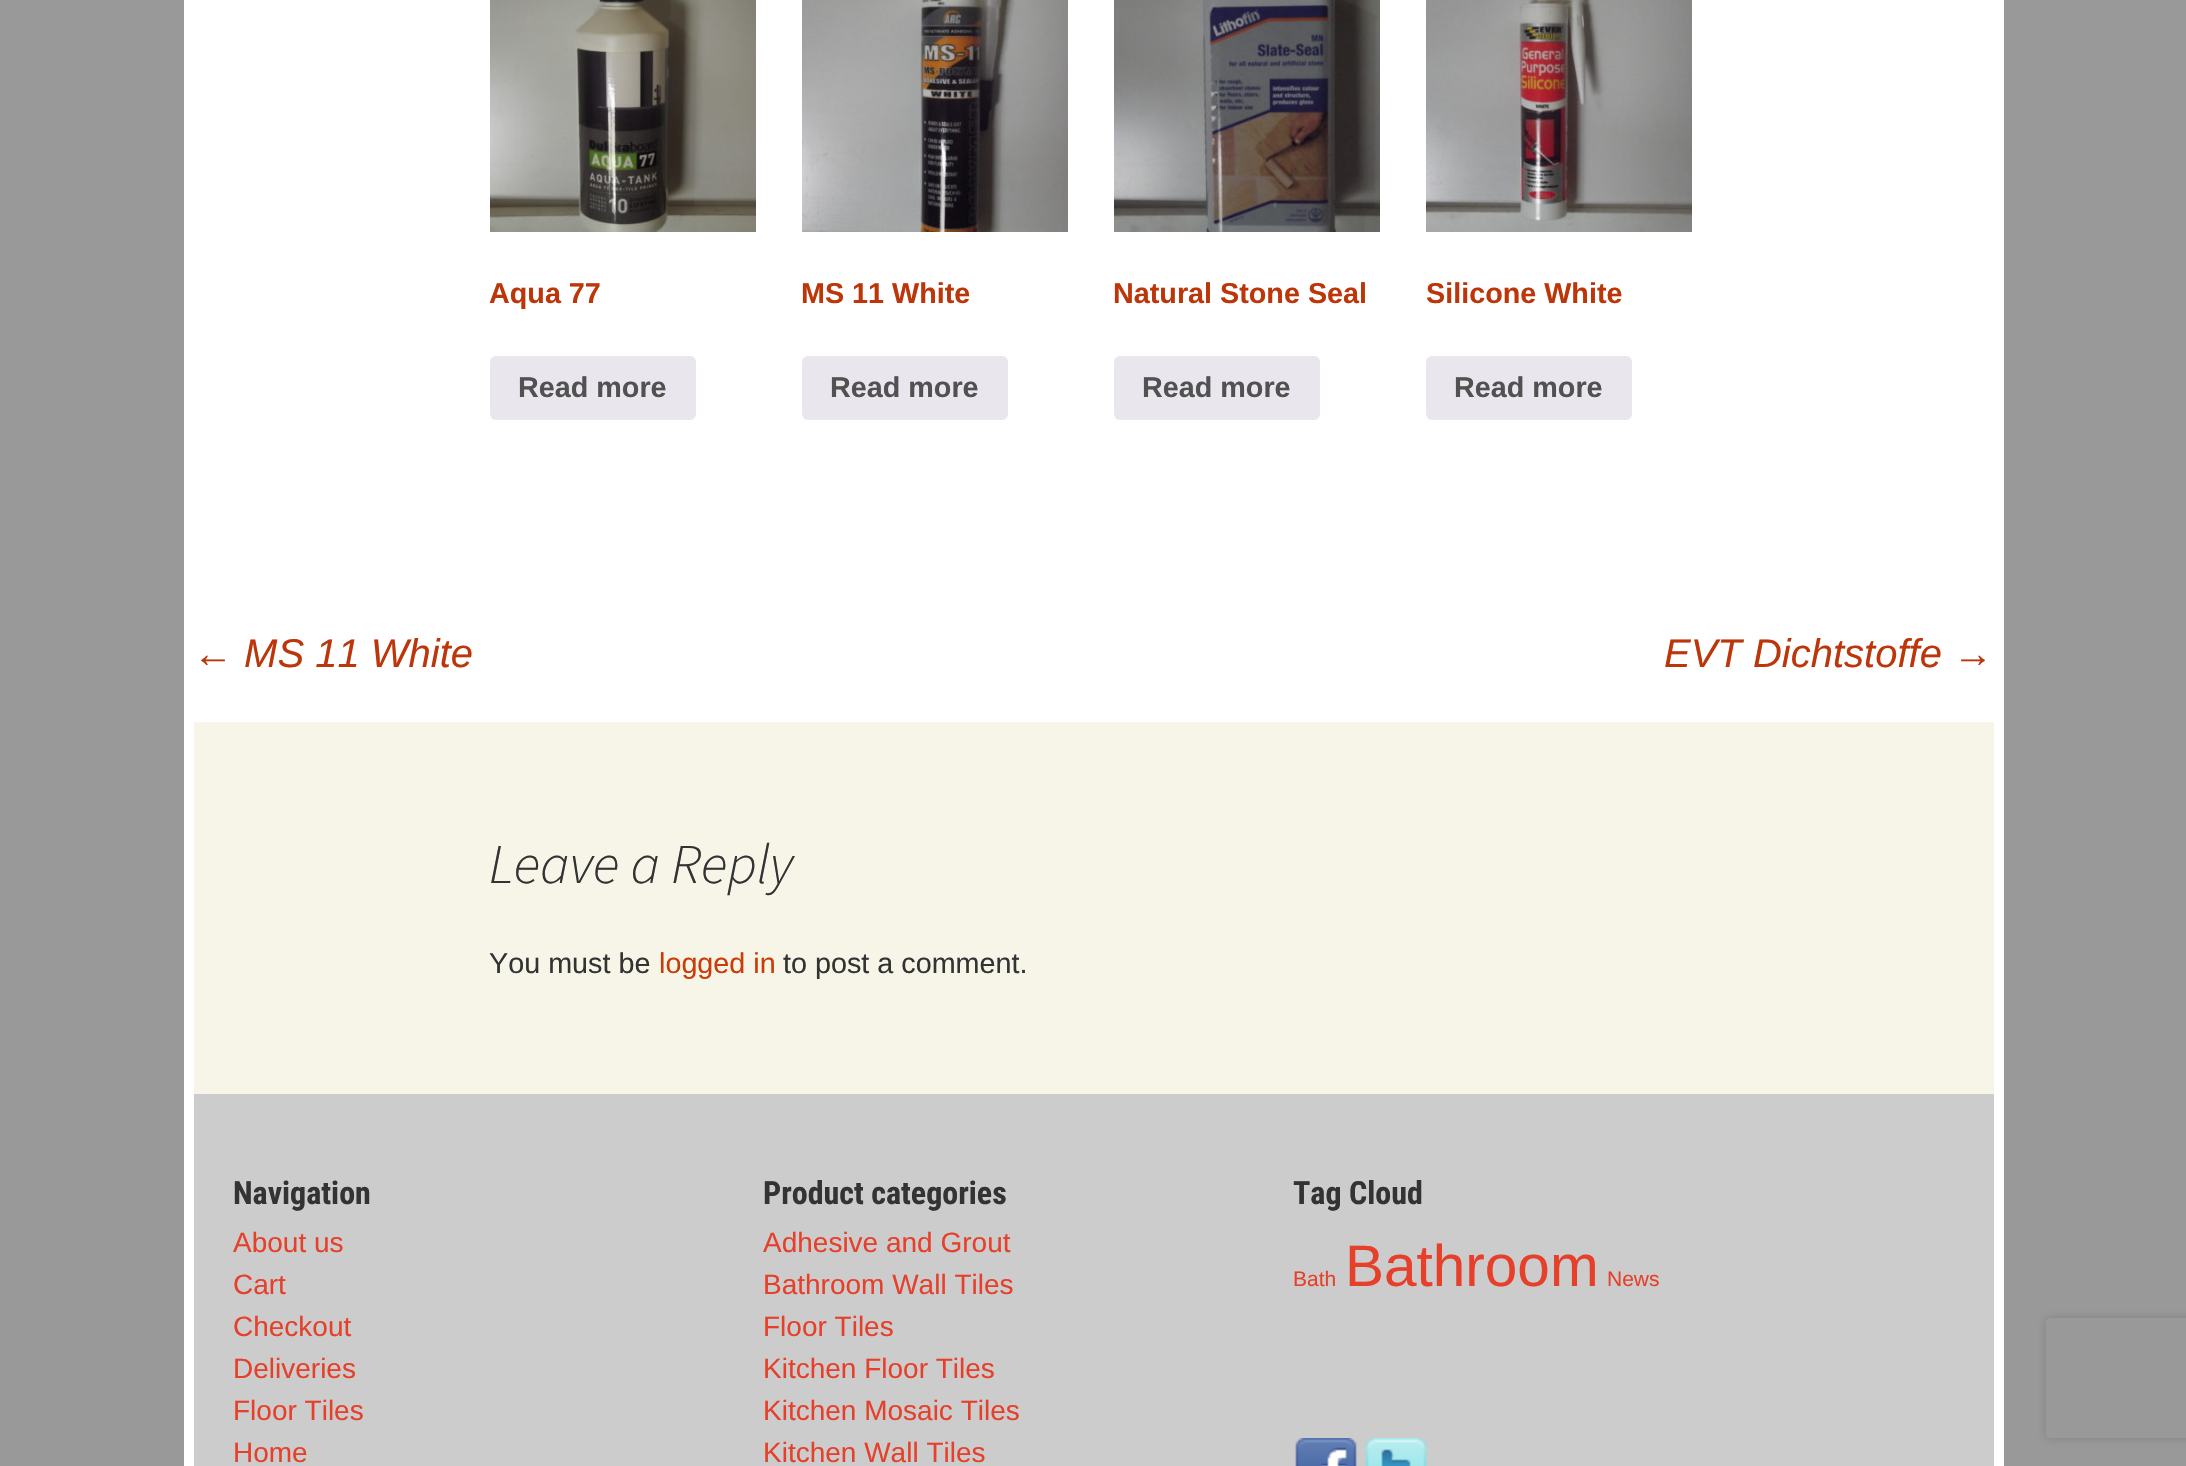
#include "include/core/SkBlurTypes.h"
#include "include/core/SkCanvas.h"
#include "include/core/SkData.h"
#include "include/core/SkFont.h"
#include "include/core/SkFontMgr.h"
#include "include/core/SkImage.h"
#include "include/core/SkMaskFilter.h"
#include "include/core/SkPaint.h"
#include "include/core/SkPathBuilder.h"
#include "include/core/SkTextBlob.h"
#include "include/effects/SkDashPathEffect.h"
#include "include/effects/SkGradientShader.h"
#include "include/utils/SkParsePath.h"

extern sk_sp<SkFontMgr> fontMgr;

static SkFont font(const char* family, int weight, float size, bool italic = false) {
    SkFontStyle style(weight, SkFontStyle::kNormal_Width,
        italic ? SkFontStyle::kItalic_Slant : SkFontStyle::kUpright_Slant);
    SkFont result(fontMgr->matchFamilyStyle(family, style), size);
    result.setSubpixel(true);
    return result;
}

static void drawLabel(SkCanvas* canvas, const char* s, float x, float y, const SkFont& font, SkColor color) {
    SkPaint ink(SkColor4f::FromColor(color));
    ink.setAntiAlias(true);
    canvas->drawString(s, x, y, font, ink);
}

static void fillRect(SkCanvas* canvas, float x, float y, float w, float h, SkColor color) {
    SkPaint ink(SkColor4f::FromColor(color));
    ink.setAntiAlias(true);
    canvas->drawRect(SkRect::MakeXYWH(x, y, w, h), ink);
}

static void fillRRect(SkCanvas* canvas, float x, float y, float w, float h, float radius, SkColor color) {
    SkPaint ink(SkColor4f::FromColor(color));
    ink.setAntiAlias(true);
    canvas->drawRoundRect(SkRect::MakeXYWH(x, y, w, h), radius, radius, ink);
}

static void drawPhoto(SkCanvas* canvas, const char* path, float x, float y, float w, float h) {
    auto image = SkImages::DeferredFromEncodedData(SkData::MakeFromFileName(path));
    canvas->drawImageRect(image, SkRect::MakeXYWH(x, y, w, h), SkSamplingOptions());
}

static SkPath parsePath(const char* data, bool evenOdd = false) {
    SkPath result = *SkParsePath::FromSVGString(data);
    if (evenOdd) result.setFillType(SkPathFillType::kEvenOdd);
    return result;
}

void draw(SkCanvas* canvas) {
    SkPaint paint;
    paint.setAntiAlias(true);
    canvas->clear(0xFF999999);
    fillRect(canvas, 184, 0, 1820, 1466, 0xFFFFFFFF);
    drawPhoto(canvas, "assets/img1.png", 490, 0, 266, 232);
    SkFont font1 = font("Liberation Sans", 700, 28.75f);
    drawLabel(canvas, "Aqua 77", 489, 303, font1, 0xFFBC360A);
    fillRRect(canvas, 490, 356, 206, 64, 6, 0xFFE9E6ED);
    drawLabel(canvas, "Read more", 518, 397, font1, 0xFF515151);
    drawPhoto(canvas, "assets/img2.png", 802, 0, 266, 232);
    drawLabel(canvas, "MS 11 White", 801, 303, font1, 0xFFBC360A);
    fillRRect(canvas, 802, 356, 206, 64, 6, 0xFFE9E6ED);
    drawLabel(canvas, "Read more", 830, 397, font1, 0xFF515151);
    drawPhoto(canvas, "assets/img3.png", 1114, 0, 266, 232);
    drawLabel(canvas, "Natural Stone Seal", 1113, 303, font1, 0xFFBC360A);
    fillRRect(canvas, 1114, 356, 206, 64, 6, 0xFFE9E6ED);
    drawLabel(canvas, "Read more", 1142, 397, font1, 0xFF515151);
    drawPhoto(canvas, "assets/img4.png", 1426, 0, 266, 232);
    drawLabel(canvas, "Silicone White", 1426, 303, font1, 0xFFBC360A);
    fillRRect(canvas, 1426, 356, 206, 64, 6, 0xFFE9E6ED);
    drawLabel(canvas, "Read more", 1454, 397, font1, 0xFF515151);
    SkFont font2 = font("Liberation Sans", 400, 40, true);
    drawLabel(canvas, "← MS 11 White", 193, 667, font2, 0xFFBC360A);
    drawLabel(canvas, "EVT Dichtstoffe →", 1664, 667, font2, 0xFFBC360A);
    fillRect(canvas, 194, 722, 1800, 372, 0xFFF7F5E7);
    SkFont font3 = font("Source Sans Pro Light", 300, 56, true);
    drawLabel(canvas, "Leave a Reply", 489, 883, font3, 0xFF333333);
    SkFont font4 = font("Liberation Sans", 400, 28.75f);
    drawLabel(canvas, "You must be", 489, 973, font4, 0xFF333333);
    drawLabel(canvas, "logged in", 659, 973, font4, 0xFFCA3C08);
    drawLabel(canvas, "to post a comment.", 783, 973, font4, 0xFF333333);
    fillRect(canvas, 194, 1094, 1800, 372, 0xFFCCCCCC);
    SkFont font5 = font("Roboto Condensed", 700, 32);
    drawLabel(canvas, "Navigation", 233, 1204, font5, 0xFF333333);
    SkFont font6 = font("Liberation Sans", 400, 28);
    drawLabel(canvas, "About us", 233, 1252, font6, 0xFFE6402A);
    drawLabel(canvas, "Cart", 233, 1294, font6, 0xFFE6402A);
    drawLabel(canvas, "Checkout", 233, 1336, font6, 0xFFE6402A);
    drawLabel(canvas, "Deliveries", 233, 1378, font6, 0xFFE6402A);
    drawLabel(canvas, "Floor Tiles", 233, 1420, font6, 0xFFE6402A);
    drawLabel(canvas, "Home", 233, 1462, font6, 0xFFE6402A);
    drawLabel(canvas, "Product categories", 763, 1204, font5, 0xFF333333);
    drawLabel(canvas, "Adhesive and Grout", 763, 1252, font6, 0xFFE6402A);
    drawLabel(canvas, "Bathroom Wall Tiles", 763, 1294, font6, 0xFFE6402A);
    drawLabel(canvas, "Floor Tiles", 763, 1336, font6, 0xFFE6402A);
    drawLabel(canvas, "Kitchen Floor Tiles", 763, 1378, font6, 0xFFE6402A);
    drawLabel(canvas, "Kitchen Mosaic Tiles", 763, 1420, font6, 0xFFE6402A);
    drawLabel(canvas, "Kitchen Wall Tiles", 763, 1462, font6, 0xFFE6402A);
    drawLabel(canvas, "Tag Cloud", 1293, 1204, font5, 0xFF333333);
    SkFont font7 = font("Liberation Sans", 400, 21);
    drawLabel(canvas, "Bath", 1293, 1286, font7, 0xFFE6402A);
    SkFont font8 = font("Liberation Sans", 400, 58.5f);
    drawLabel(canvas, "Bathroom", 1345, 1286, font8, 0xFFE6402A);
    drawLabel(canvas, "News", 1607, 1286, font7, 0xFFE6402A);
    drawPhoto(canvas, "assets/img5.png", 1295, 1438, 62, 28);
    drawPhoto(canvas, "assets/img6.png", 1365, 1438, 62, 28);
    canvas->save();
    canvas->clipPath(parsePath("M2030 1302H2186V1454H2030ZM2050 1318H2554C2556 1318 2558 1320 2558 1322V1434C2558 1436 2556 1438 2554 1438H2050C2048 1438 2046 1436 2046 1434V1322C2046 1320 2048 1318 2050 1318Z", true), true);
    paint.setColor(0xFF808080);
    paint.setMaskFilter(SkMaskFilter::MakeBlur(kNormal_SkBlurStyle, 5));
    canvas->drawRoundRect(SkRect::MakeXYWH(2046, 1318, 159, 120), 4, 4, paint);
    paint.setMaskFilter(nullptr);
    canvas->restore();
}
